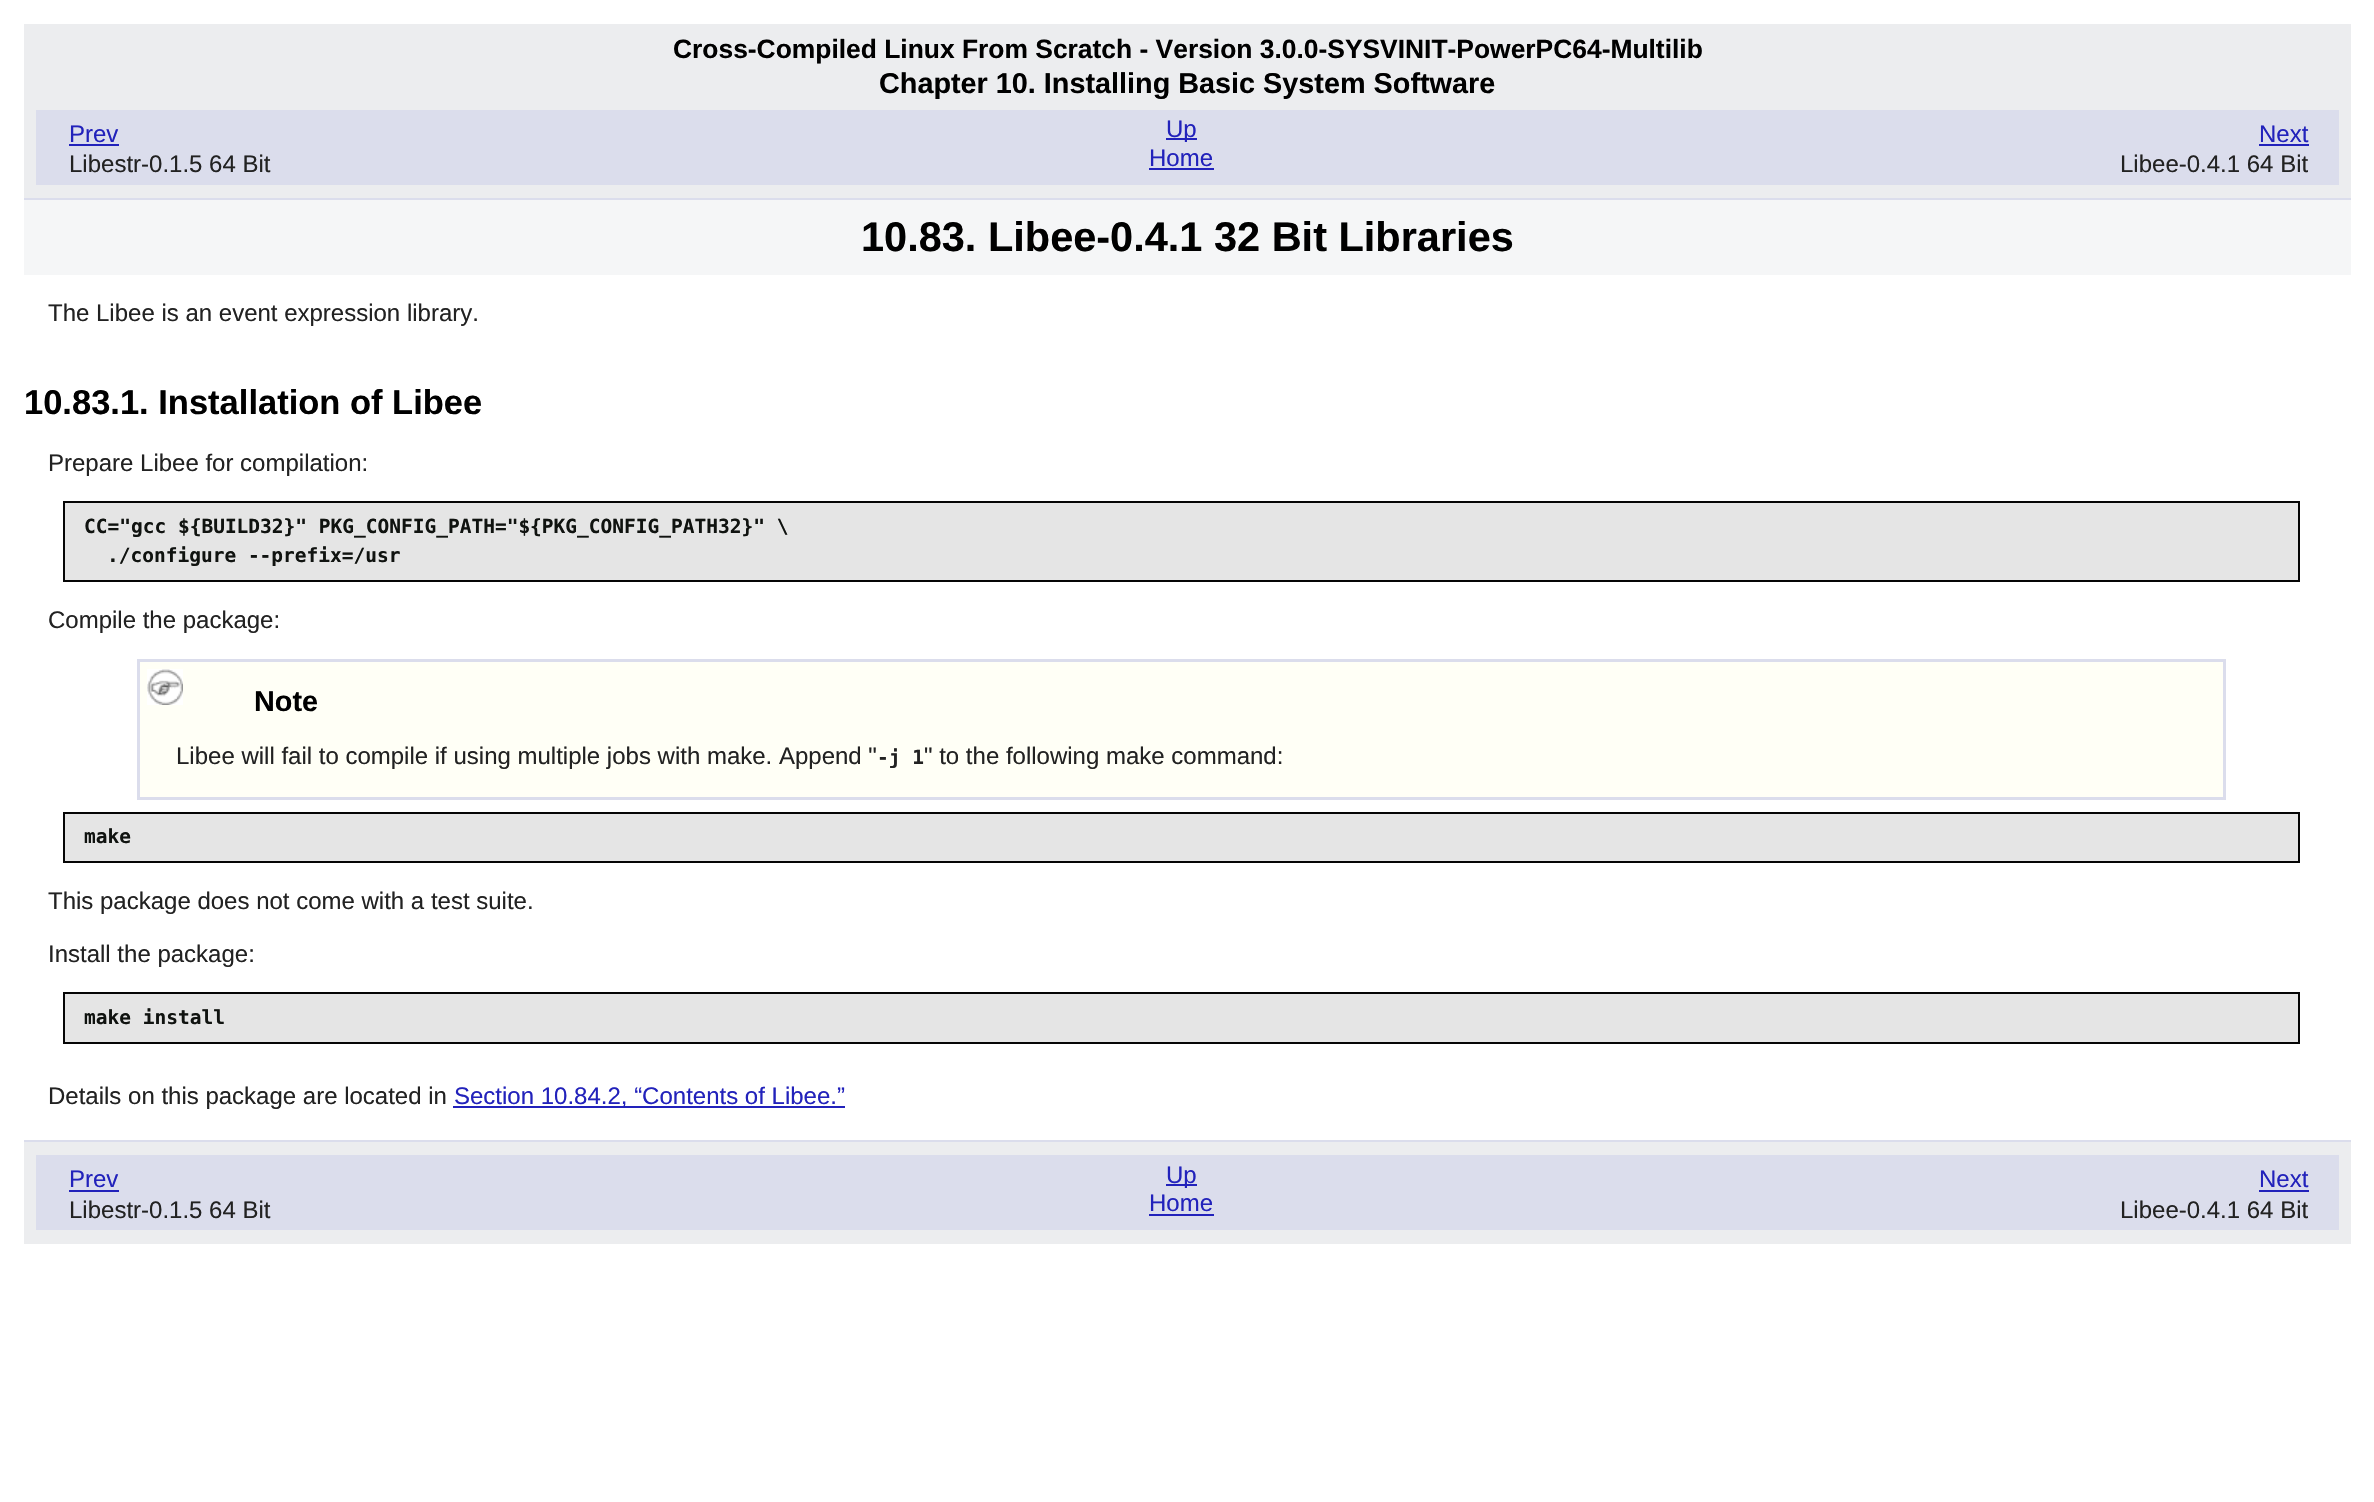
#include "include/core/SkBlurTypes.h"
#include "include/core/SkCanvas.h"
#include "include/core/SkData.h"
#include "include/core/SkFont.h"
#include "include/core/SkFontMgr.h"
#include "include/core/SkImage.h"
#include "include/core/SkMaskFilter.h"
#include "include/core/SkPaint.h"
#include "include/core/SkPathBuilder.h"
#include "include/core/SkTextBlob.h"
#include "include/effects/SkDashPathEffect.h"
#include "include/effects/SkGradientShader.h"
#include "include/utils/SkParsePath.h"

extern sk_sp<SkFontMgr> fontMgr;

static SkFont font(const char* family, int weight, float size, bool italic = false) {
    SkFontStyle style(weight, SkFontStyle::kNormal_Width,
        italic ? SkFontStyle::kItalic_Slant : SkFontStyle::kUpright_Slant);
    SkFont result(fontMgr->matchFamilyStyle(family, style), size);
    result.setSubpixel(true);
    return result;
}

static void drawLabel(SkCanvas* canvas, const char* s, float x, float y, const SkFont& font, SkColor color) {
    SkPaint ink(SkColor4f::FromColor(color));
    ink.setAntiAlias(true);
    canvas->drawString(s, x, y, font, ink);
}

static void fillRect(SkCanvas* canvas, float x, float y, float w, float h, SkColor color) {
    SkPaint ink(SkColor4f::FromColor(color));
    ink.setAntiAlias(true);
    canvas->drawRect(SkRect::MakeXYWH(x, y, w, h), ink);
}

static void drawPhoto(SkCanvas* canvas, const char* path, float x, float y, float w, float h) {
    auto image = SkImages::DeferredFromEncodedData(SkData::MakeFromFileName(path));
    canvas->drawImageRect(image, SkRect::MakeXYWH(x, y, w, h), SkSamplingOptions());
}

void draw(SkCanvas* canvas) {
    SkPaint paint;
    paint.setAntiAlias(true);
    canvas->clear(0xFFFFFFFF);
    fillRect(canvas, 24, 24, 2327, 174, 0xFFECEDEF);
    fillRect(canvas, 24, 198, 2327, 2, 0xFFDBDDEC);
    SkFont font1 = font("Liberation Sans", 700, 26.4f);
    drawLabel(canvas, "Cross-Compiled Linux From Scratch - Version 3.0.0-SYSVINIT-PowerPC64-Multilib", 673, 58, font1, 0xFF000000);
    SkFont font2 = font("Liberation Sans", 700, 28.8f);
    drawLabel(canvas, "Chapter 10. Installing Basic System Software", 879, 93, font2, 0xFF000000);
    fillRect(canvas, 36, 110, 2303, 75, 0xFFDBDDEC);
    SkFont font3 = font("Liberation Sans", 400, 24);
    drawLabel(canvas, "Prev", 69, 142, font3, 0xFF2222BB);
    fillRect(canvas, 69, 144, 50, 2, 0xFF2222BB);
    drawLabel(canvas, "Libestr-0.1.5 64 Bit", 69, 172, font3, 0xFF222222);
    fillRect(canvas, 1166, 138, 31, 2, 0xFF2222BB);
    drawLabel(canvas, "Up", 1166, 137, font3, 0xFF2222BB);
    drawLabel(canvas, "Next", 2259, 142, font3, 0xFF2222BB);
    fillRect(canvas, 2259, 144, 50, 2, 0xFF2222BB);
    drawLabel(canvas, "Libee-0.4.1 64 Bit", 2120, 172, font3, 0xFF222222);
    drawLabel(canvas, "Home", 1149, 166, font3, 0xFF2222BB);
    fillRect(canvas, 1149, 168, 65, 2, 0xFF2222BB);
    fillRect(canvas, 24, 200, 2327, 75, 0xFFF5F6F7);
    SkFont font4 = font("Liberation Sans", 700, 41.5f);
    drawLabel(canvas, "10.83. Libee-0.4.1 32 Bit Libraries", 861, 251, font4, 0xFF000000);
    drawLabel(canvas, "The Libee is an event expression library.", 48, 321, font3, 0xFF222222);
    SkFont font5 = font("Liberation Sans", 700, 34.5f);
    drawLabel(canvas, "10.83.1. Installation of Libee", 24, 414, font5, 0xFF000000);
    drawLabel(canvas, "Prepare Libee for compilation:", 48, 471, font3, 0xFF222222);
    paint.setColor(0xFFE5E5E5);
    canvas->drawRect(SkRect::MakeXYWH(64, 502, 2235, 79), paint);
    paint.setStroke(true);
    paint.setStrokeWidth(2);
    paint.setColor(0xFF050505);
    canvas->drawRect(SkRect::MakeXYWH(64, 502, 2235, 79), paint);
    SkFont font6 = font("DejaVu Sans Mono", 700, 19.5f);
    drawLabel(canvas, "CC=\"gcc ${BUILD32}\" PKG_CONFIG_PATH=\"${PKG_CONFIG_PATH32}\" \\", 84, 533, font6, 0xFF101310);
    drawLabel(canvas, "./configure --prefix=/usr", 107, 562, font6, 0xFF101310);
    drawLabel(canvas, "Compile the package:", 48, 628, font3, 0xFF222222);
    paint.setStroke(false);
    paint.setColor(0xFFFFFFF6);
    canvas->drawRect(SkRect::MakeXYWH(138.5f, 660.5f, 2086, 138), paint);
    paint.setStroke(true);
    paint.setStrokeWidth(3);
    paint.setColor(0xFFDBDDEC);
    canvas->drawRect(SkRect::MakeXYWH(138.5f, 660.5f, 2086, 138), paint);
    drawPhoto(canvas, "assets/img1.png", 147, 669, 36, 36);
    drawLabel(canvas, "Note", 254, 711, font2, 0xFF000000);
    drawLabel(canvas, "Libee will fail to compile if using multiple jobs with make. Append \"", 176, 764, font3, 0xFF222222);
    drawLabel(canvas, "-j 1", 877, 764, font6, 0xFF222222);
    drawLabel(canvas, "\" to the following make command:", 924, 764, font3, 0xFF222222);
    paint.setStroke(false);
    paint.setColor(0xFFE5E5E5);
    canvas->drawRect(SkRect::MakeXYWH(64, 813, 2235, 49), paint);
    paint.setStroke(true);
    paint.setStrokeWidth(2);
    paint.setColor(0xFF050505);
    canvas->drawRect(SkRect::MakeXYWH(64, 813, 2235, 49), paint);
    drawLabel(canvas, "make", 84, 843, font6, 0xFF101310);
    drawLabel(canvas, "This package does not come with a test suite.", 48, 909, font3, 0xFF222222);
    drawLabel(canvas, "Install the package:", 48, 962, font3, 0xFF222222);
    paint.setStroke(false);
    paint.setColor(0xFFE5E5E5);
    canvas->drawRect(SkRect::MakeXYWH(64, 993, 2235, 50), paint);
    paint.setStroke(true);
    paint.setColor(0xFF050505);
    canvas->drawRect(SkRect::MakeXYWH(64, 993, 2235, 50), paint);
    drawLabel(canvas, "make install", 84, 1024, font6, 0xFF101310);
    drawLabel(canvas, "Details on this package are located in", 48, 1104, font3, 0xFF222222);
    fillRect(canvas, 453, 1106, 392, 2, 0xFF2222BB);
    drawLabel(canvas, "Section 10.84.2, “Contents of Libee.”", 454, 1104, font3, 0xFF2222BB);
    fillRect(canvas, 24, 1142, 2327, 102, 0xFFECEDEF);
    fillRect(canvas, 24, 1140, 2327, 2, 0xFFDBDDEC);
    fillRect(canvas, 36, 1155, 2303, 75, 0xFFDBDDEC);
    drawLabel(canvas, "Prev", 69, 1187, font3, 0xFF2222BB);
    fillRect(canvas, 69, 1190, 50, 2, 0xFF2222BB);
    drawLabel(canvas, "Libestr-0.1.5 64 Bit", 69, 1218, font3, 0xFF222222);
    fillRect(canvas, 1166, 1184, 31, 2, 0xFF2222BB);
    drawLabel(canvas, "Up", 1166, 1183, font3, 0xFF2222BB);
    drawLabel(canvas, "Next", 2259, 1187, font3, 0xFF2222BB);
    fillRect(canvas, 2259, 1190, 50, 2, 0xFF2222BB);
    drawLabel(canvas, "Libee-0.4.1 64 Bit", 2120, 1218, font3, 0xFF222222);
    drawLabel(canvas, "Home", 1149, 1211, font3, 0xFF2222BB);
    fillRect(canvas, 1149, 1214, 65, 2, 0xFF2222BB);
}
